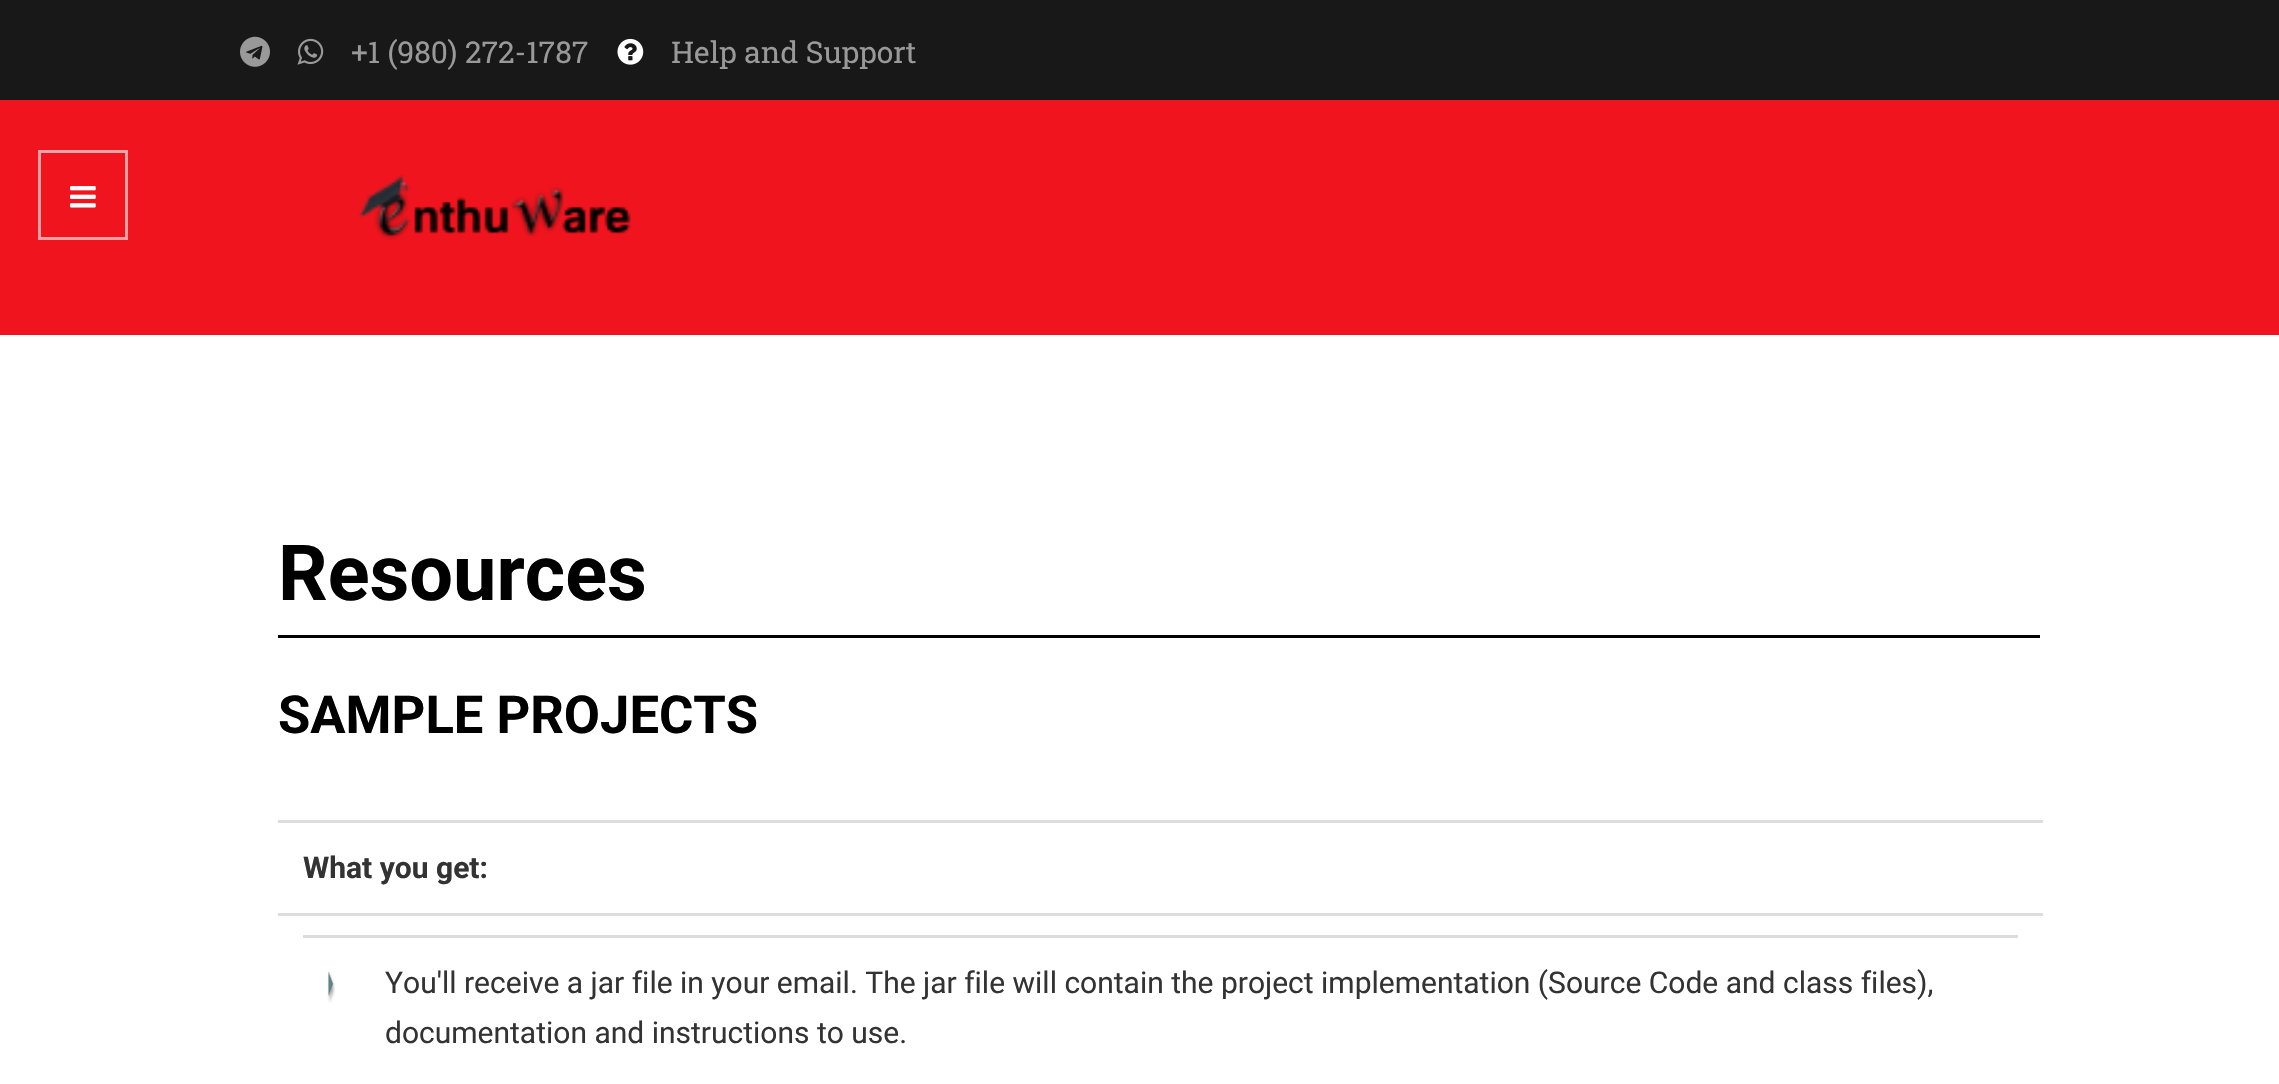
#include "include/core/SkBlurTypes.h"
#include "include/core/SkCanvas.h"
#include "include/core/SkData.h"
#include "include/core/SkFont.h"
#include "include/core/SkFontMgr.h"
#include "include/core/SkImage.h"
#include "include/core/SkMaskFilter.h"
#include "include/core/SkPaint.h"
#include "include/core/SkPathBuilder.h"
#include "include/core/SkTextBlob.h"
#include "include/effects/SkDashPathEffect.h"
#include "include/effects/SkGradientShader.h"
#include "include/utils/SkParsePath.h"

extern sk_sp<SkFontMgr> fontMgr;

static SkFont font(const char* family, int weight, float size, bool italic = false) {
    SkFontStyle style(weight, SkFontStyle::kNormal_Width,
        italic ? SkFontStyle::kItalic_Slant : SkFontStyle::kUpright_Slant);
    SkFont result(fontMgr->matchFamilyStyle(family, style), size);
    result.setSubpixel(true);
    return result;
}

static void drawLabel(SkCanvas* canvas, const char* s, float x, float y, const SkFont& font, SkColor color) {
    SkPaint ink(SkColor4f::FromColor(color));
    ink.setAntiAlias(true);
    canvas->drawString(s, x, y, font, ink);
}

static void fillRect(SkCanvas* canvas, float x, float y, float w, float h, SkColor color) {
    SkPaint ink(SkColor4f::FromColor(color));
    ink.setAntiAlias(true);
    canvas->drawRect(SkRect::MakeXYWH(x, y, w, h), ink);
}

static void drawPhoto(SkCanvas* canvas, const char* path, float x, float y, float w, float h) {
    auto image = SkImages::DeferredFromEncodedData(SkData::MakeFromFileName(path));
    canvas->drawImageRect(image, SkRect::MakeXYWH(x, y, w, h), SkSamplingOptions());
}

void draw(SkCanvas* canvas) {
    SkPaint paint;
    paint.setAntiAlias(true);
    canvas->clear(0xFFFFFFFF);
    fillRect(canvas, 0, 0, 2279, 100, 0xFF181818);
    drawPhoto(canvas, "assets/img1.png", 240, 36, 30, 31);
    drawPhoto(canvas, "assets/img2.png", 297, 38, 27, 27);
    SkFont font1 = font("Roboto Slab", 400, 30);
    drawLabel(canvas, "+1 (980) 272-1787", 351, 63, font1, 0xFF999999);
    drawPhoto(canvas, "assets/img3.png", 617, 38, 27, 27);
    drawLabel(canvas, "Help and Support", 671, 63, font1, 0xFF999999);
    fillRect(canvas, 0, 100, 2279, 235, 0xFFF0141E);
    paint.setStroke(true);
    paint.setStrokeWidth(3);
    paint.setColor(0xFFF9A1A5);
    canvas->drawRect(SkRect::MakeXYWH(39.5f, 151.5f, 87, 87), paint);
    drawPhoto(canvas, "assets/img4.png", 70, 186, 26, 22);
    drawPhoto(canvas, "assets/img5.png", 358, 175, 273, 65);
    fillRect(canvas, 278, 635, 1762, 3, 0xFF000000);
    SkFont font2 = font("Roboto", 700, 77.5f);
    drawLabel(canvas, "Resources", 278, 600, font2, 0xFF000000);
    SkFont font3 = font("Roboto", 700, 52.5f);
    drawLabel(canvas, "SAMPLE PROJECTS", 278, 733, font3, 0xFF000000);
    fillRect(canvas, 278, 820, 1765, 3, 0xFFDDDDDD);
    SkFont font4 = font("Roboto", 700, 30);
    drawLabel(canvas, "What you get:", 303, 878, font4, 0xFF333333);
    fillRect(canvas, 278, 913, 1765, 3, 0xFFDDDDDD);
    drawPhoto(canvas, "assets/img6.png", 327, 971, 8, 32);
    fillRect(canvas, 303, 935, 1715, 3, 0xFFDDDDDD);
    SkFont font5 = font("Roboto", 400, 30);
    drawLabel(canvas, "You'll receive a jar file in your email. The jar file will contain the project implementation (Source Code and class files),", 385, 993, font5, 0xFF333333);
    drawLabel(canvas, "documentation and instructions to use.", 385, 1043, font5, 0xFF333333);
}
